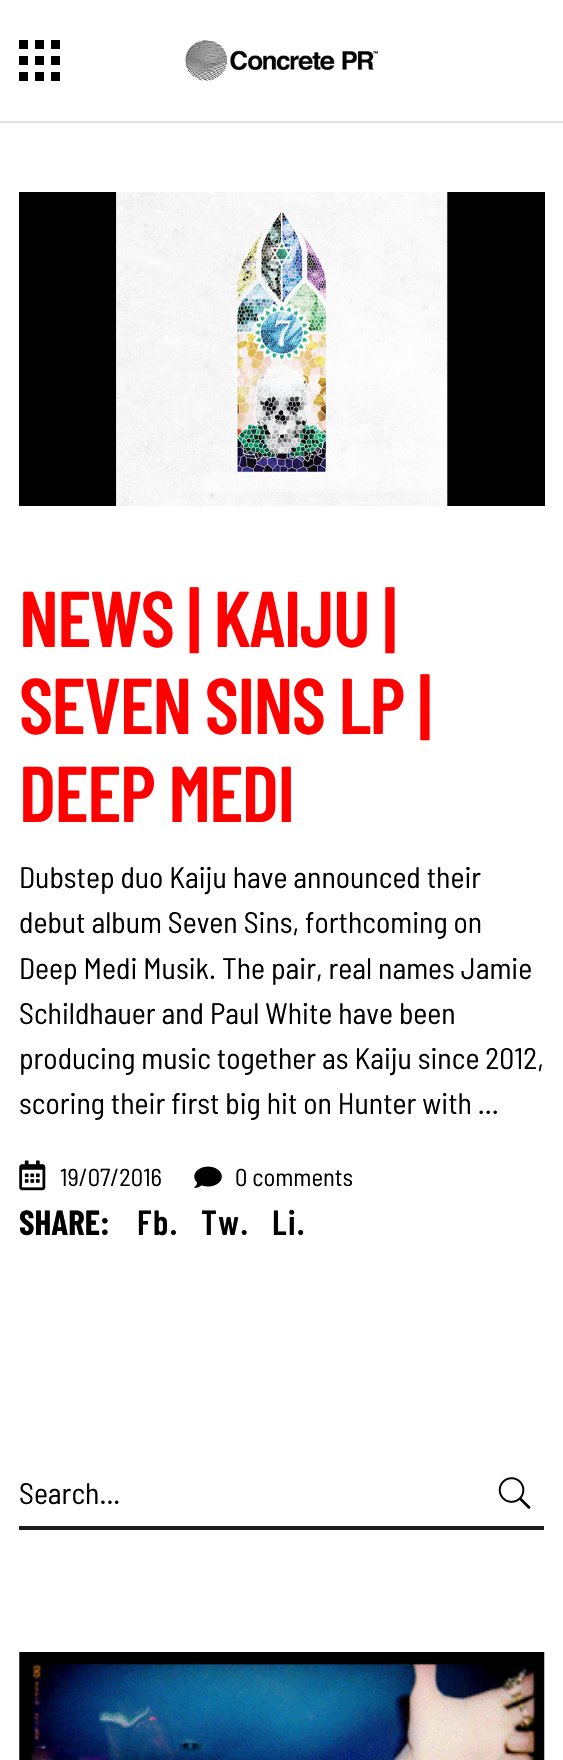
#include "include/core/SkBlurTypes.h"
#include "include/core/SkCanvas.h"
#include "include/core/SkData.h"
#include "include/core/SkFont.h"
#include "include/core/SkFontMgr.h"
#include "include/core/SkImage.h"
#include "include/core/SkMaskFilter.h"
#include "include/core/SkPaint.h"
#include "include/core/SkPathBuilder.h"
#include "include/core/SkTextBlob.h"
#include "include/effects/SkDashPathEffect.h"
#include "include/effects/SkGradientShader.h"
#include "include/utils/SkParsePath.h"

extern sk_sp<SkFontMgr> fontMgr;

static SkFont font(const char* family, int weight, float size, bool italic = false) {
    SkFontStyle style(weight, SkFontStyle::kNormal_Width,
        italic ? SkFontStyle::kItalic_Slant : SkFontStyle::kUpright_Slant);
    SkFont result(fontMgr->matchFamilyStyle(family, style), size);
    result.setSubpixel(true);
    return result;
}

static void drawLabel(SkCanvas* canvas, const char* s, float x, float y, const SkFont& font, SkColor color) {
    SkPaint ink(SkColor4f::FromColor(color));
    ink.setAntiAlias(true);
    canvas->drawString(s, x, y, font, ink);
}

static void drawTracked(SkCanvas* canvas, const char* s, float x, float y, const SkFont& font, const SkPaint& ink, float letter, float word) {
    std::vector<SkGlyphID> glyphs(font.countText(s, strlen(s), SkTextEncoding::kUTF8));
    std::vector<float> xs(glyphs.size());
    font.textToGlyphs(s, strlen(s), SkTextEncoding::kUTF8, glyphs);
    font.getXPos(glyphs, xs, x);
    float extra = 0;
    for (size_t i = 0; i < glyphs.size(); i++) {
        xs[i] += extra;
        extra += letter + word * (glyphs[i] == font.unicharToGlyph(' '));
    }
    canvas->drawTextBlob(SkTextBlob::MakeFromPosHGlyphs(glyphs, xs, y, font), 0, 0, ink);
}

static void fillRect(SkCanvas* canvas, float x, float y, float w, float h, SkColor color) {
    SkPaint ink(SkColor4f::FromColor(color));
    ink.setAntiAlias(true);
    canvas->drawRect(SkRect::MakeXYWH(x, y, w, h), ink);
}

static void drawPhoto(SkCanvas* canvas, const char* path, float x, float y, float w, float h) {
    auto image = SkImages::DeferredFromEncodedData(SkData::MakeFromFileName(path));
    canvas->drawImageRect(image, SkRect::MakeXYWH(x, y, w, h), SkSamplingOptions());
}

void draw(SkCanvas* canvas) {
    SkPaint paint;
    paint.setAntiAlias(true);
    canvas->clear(0xFFFFFFFF);
    fillRect(canvas, 0, 121, 563, 2, 0xFFE1E1E1);
    fillRect(canvas, 19, 40, 9, 9, 0xFF000000);
    fillRect(canvas, 35, 40, 9, 9, 0xFF000000);
    fillRect(canvas, 51, 40, 9, 9, 0xFF000000);
    fillRect(canvas, 19, 56, 9, 9, 0xFF000000);
    fillRect(canvas, 35, 56, 9, 9, 0xFF000000);
    fillRect(canvas, 51, 56, 9, 9, 0xFF000000);
    fillRect(canvas, 19, 72, 9, 9, 0xFF000000);
    fillRect(canvas, 35, 72, 9, 9, 0xFF000000);
    fillRect(canvas, 51, 72, 9, 9, 0xFF000000);
    drawPhoto(canvas, "assets/img1.png", 185, 40, 193, 41);
    drawPhoto(canvas, "assets/img2.png", 19, 192, 526, 314);
    SkFont font1 = font("Barlow Condensed", 600, 78.75f);
    paint.setColor(0xFFFF0000);
    drawTracked(canvas, "NEWS | KAIJU |", 19, 647, font1, paint, -1.6f, 0);
    drawTracked(canvas, "SEVEN SINS LP |", 19, 734, font1, paint, -1.6f, 0);
    drawTracked(canvas, "DEEP MEDI", 19, 822, font1, paint, -1.6f, 0);
    SkFont font2 = font("Barlow Semi Condensed", 400, 29.75f);
    drawLabel(canvas, "Dubstep duo Kaiju have announced their", 19, 888, font2, 0xFF000000);
    drawLabel(canvas, "debut album Seven Sins, forthcoming on", 19, 933, font2, 0xFF000000);
    drawLabel(canvas, "Deep Medi Musik. The pair, real names Jamie", 19, 979, font2, 0xFF000000);
    drawLabel(canvas, "Schildhauer and Paul White have been", 19, 1024, font2, 0xFF000000);
    drawLabel(canvas, "producing music together as Kaiju since 2012,", 19, 1069, font2, 0xFF000000);
    drawLabel(canvas, "scoring their first big hit on Hunter with ...", 19, 1114, font2, 0xFF000000);
    drawPhoto(canvas, "assets/img3.png", 19, 1160, 27, 31);
    SkFont font3 = font("Barlow Semi Condensed", 400, 24.5f);
    drawLabel(canvas, "19/07/2016", 60, 1186, font3, 0xFF000000);
    drawPhoto(canvas, "assets/img4.png", 194, 1166, 28, 22);
    drawLabel(canvas, "0 comments", 235, 1186, font3, 0xFF000000);
    SkFont font4 = font("Barlow Condensed", 700, 35);
    drawLabel(canvas, "SHARE:", 19, 1235, font4, 0xFF000000);
    SkFont font5 = font("Barlow Condensed", 600, 35);
    paint.setColor(0xFF000000);
    drawTracked(canvas, "Fb.", 137, 1235, font5, paint, 1.5f, 0);
    drawTracked(canvas, "Tw.", 201, 1235, font5, paint, 1.5f, 0);
    drawTracked(canvas, "Li.", 272, 1235, font5, paint, 1.5f, 0);
    fillRect(canvas, 19, 1526, 525, 4, 0xFF1D1D1D);
    drawLabel(canvas, "Search...", 19, 1504, font2, 0xFF000000);
    drawPhoto(canvas, "assets/img5.png", 498, 1477, 33, 32);
    drawPhoto(canvas, "assets/img6.png", 19, 1652, 526, 108);
}
